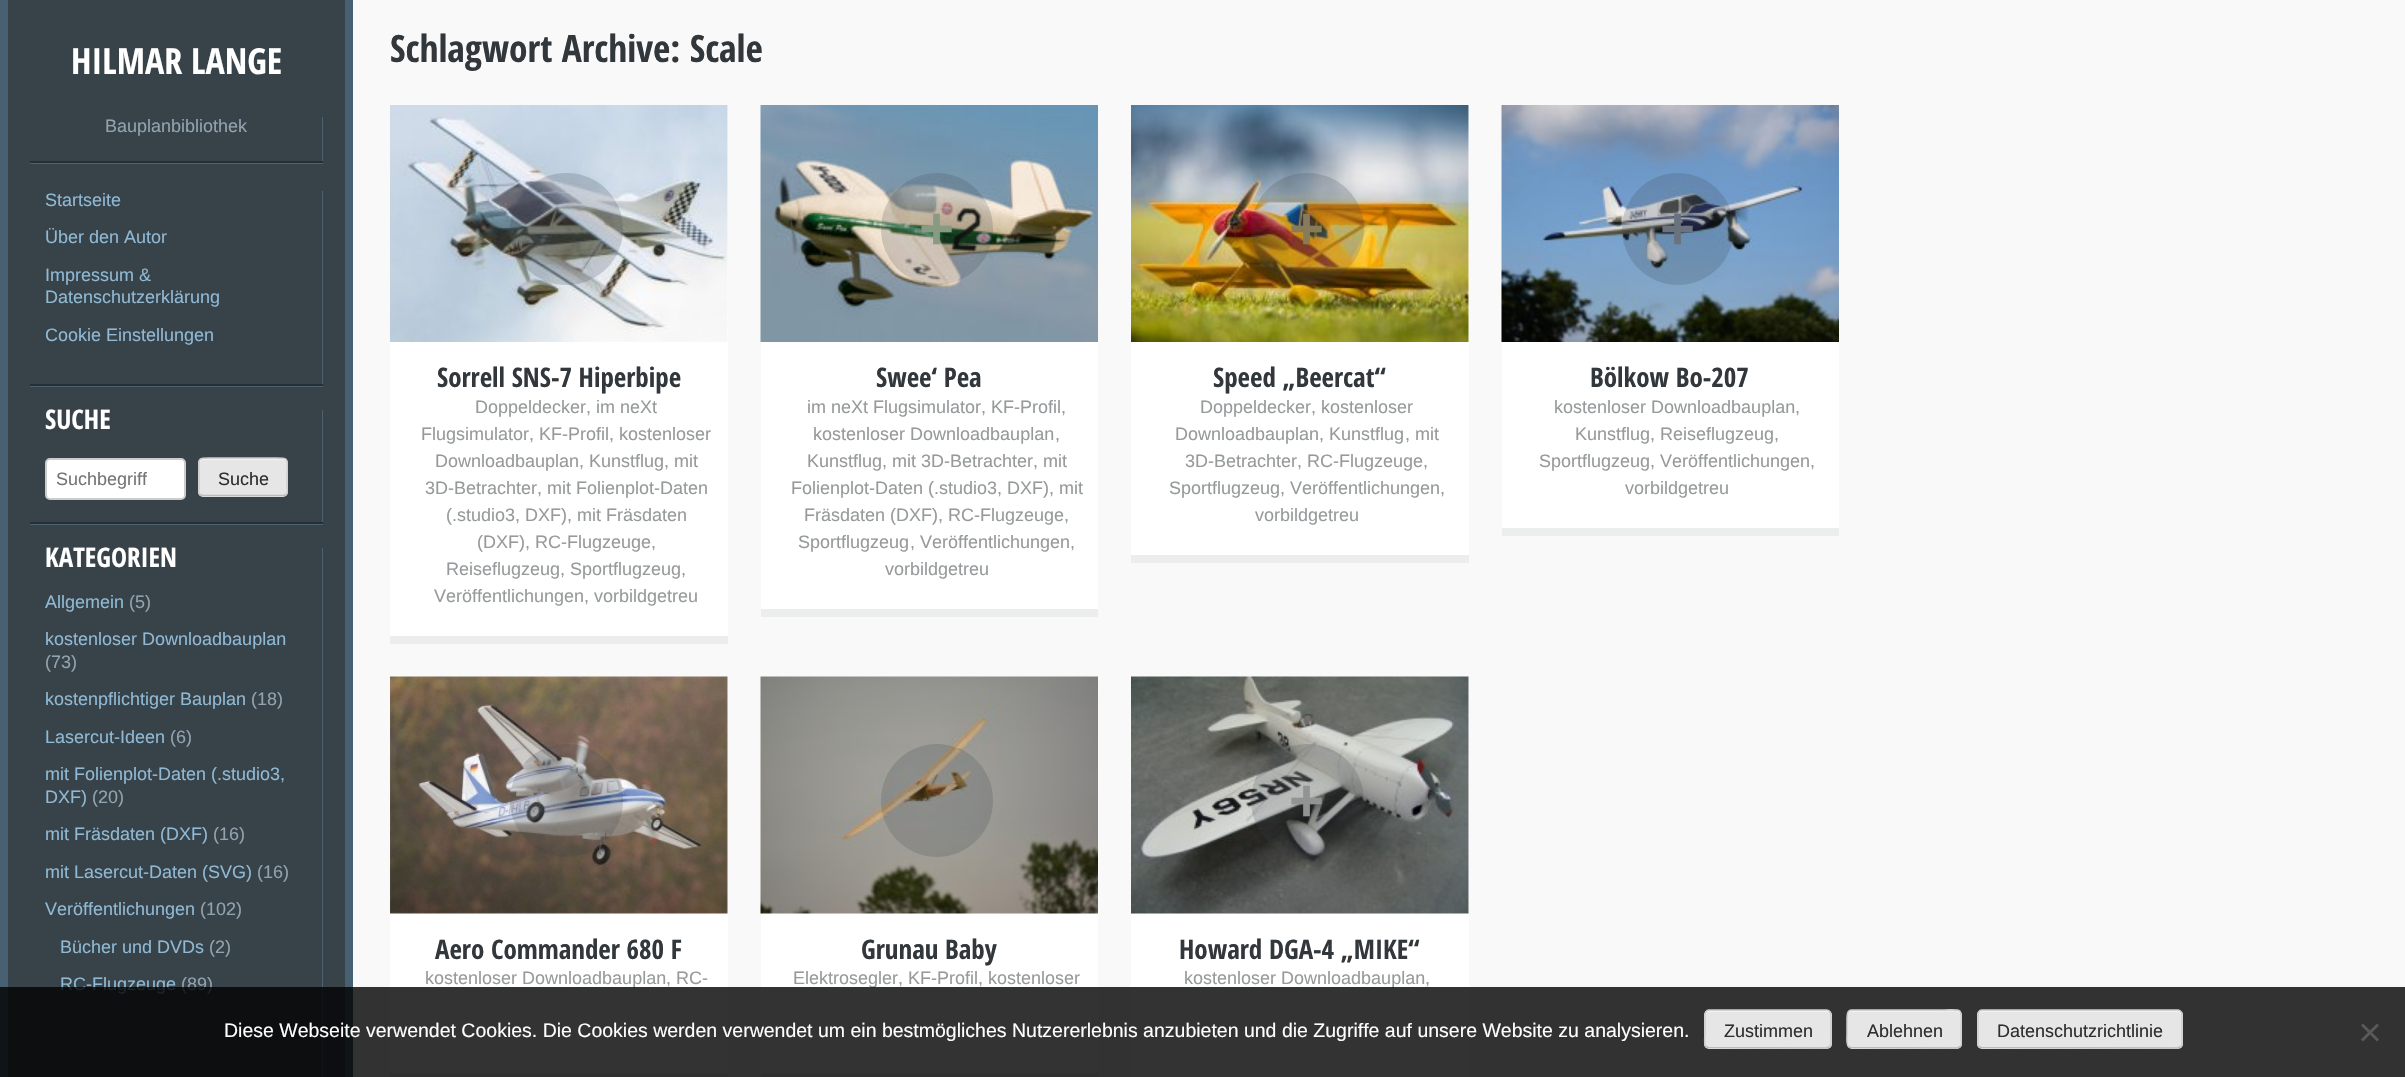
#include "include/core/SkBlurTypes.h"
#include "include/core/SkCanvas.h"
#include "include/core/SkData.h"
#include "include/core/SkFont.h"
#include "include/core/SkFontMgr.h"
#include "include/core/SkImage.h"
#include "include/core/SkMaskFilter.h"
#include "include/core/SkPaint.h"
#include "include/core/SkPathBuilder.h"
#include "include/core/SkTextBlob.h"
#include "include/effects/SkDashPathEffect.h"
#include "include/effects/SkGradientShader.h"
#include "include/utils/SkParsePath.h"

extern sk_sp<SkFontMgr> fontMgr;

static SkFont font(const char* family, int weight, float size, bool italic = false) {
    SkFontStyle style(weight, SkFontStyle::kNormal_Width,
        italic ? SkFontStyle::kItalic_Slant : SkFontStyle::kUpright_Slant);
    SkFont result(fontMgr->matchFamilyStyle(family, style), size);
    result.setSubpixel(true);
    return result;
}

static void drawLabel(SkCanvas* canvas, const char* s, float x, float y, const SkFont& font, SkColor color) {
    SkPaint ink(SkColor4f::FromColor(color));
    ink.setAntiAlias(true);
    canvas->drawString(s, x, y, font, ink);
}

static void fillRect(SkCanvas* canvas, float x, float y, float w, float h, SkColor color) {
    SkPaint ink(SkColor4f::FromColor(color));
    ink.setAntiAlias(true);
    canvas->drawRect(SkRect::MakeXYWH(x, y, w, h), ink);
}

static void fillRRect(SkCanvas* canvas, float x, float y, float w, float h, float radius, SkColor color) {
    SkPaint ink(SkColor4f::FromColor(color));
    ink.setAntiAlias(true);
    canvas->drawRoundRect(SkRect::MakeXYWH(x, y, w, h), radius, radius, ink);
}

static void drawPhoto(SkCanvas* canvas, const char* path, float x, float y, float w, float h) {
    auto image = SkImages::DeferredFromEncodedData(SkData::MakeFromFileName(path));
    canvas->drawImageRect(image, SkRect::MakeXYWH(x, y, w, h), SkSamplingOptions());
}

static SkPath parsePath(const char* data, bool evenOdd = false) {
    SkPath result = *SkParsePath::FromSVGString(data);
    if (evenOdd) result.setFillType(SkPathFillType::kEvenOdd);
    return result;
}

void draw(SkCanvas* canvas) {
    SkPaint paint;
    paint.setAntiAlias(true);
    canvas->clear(0xFFF9F9F9);
    fillRect(canvas, 8, 0, 337, 1077, 0xFF384249);
    fillRect(canvas, 345, 0, 8, 1077, 0xFF476172);
    fillRect(canvas, 0, 0, 8, 1077, 0xFF476172);
    SkFont font1 = font("Open Sans Condensed", 700, 36);
    drawLabel(canvas, "HILMAR LANGE", 71, 74, font1, 0xFFFFFFFF);
    paint.setColor(0xFF4B6272);
    canvas->drawPath(parsePath("M30 162V164H323V117H322V162Z"), paint);
    fillRect(canvas, 30, 161, 293, 2, 0xFF272F34);
    SkFont font2 = font("Liberation Sans", 400, 18);
    drawLabel(canvas, "Bauplanbibliothek", 105, 132, font2, 0xFF91A3AF);
    canvas->drawPath(parsePath("M30 386V387H323V191H322V386Z"), paint);
    fillRect(canvas, 30, 384, 293, 2, 0xFF272F34);
    drawLabel(canvas, "Startseite", 45, 206, font2, 0xFF8FB9D4);
    drawLabel(canvas, "Über den Autor", 45, 243, font2, 0xFF8FB9D4);
    drawLabel(canvas, "Impressum &", 45, 281, font2, 0xFF8FB9D4);
    drawLabel(canvas, "Datenschutzerklärung", 45, 303, font2, 0xFF8FB9D4);
    drawLabel(canvas, "Cookie Einstellungen", 45, 341, font2, 0xFF8FB9D4);
    canvas->drawPath(parsePath("M30 524V525H323V410H322V524Z"), paint);
    fillRect(canvas, 30, 522, 293, 2, 0xFF272F34);
    SkFont font3 = font("Open Sans Condensed", 700, 27);
    drawLabel(canvas, "SUCHE", 45, 429, font3, 0xFFFFFFFF);
    paint.setColor(0xFFFFFFFF);
    canvas->drawRoundRect(SkRect::MakeXYWH(46, 459, 139, 40), 4, 4, paint);
    paint.setStroke(true);
    paint.setStrokeWidth(2);
    paint.setColor(0xFFCCCCCC);
    canvas->drawRoundRect(SkRect::MakeXYWH(46, 459, 139, 40), 4, 4, paint);
    drawLabel(canvas, "Suchbegriff", 56, 485, font2, 0xFF757575);
    fillRRect(canvas, 198, 458, 90, 39, 5, 0xFFE6E6E6);
    paint.setStroke(false);
    paint.setColor(0xFFF3F3F3);
    canvas->drawPath(parsePath("M202 460H270C289 460 286 457 286 474V494C287 494 287 493 287 492V462C287 460 286 459 284 459H203C201 459 200 460 200 462V464C200 462 201 460 202 460Z"), paint);
    paint.setStroke(true);
    paint.setStrokeWidth(1.5f);
    paint.setColor(0xFFBBBBBB);
    canvas->drawPath(parsePath("M286 494.5L284 495.5H202L200 494.5"), paint);
    paint.setColor(0xFFCCCCCC);
    canvas->drawPath(parsePath("M200 494.5C198 493 199 489 199 487V477C199 456 195 458 216 458H270C291 458 287 456 287 477V487C287 489 288 493 286 494.5"), paint);
    drawLabel(canvas, "Suche", 218, 485, font2, 0xFF2E2E2E);
    paint.setStroke(false);
    paint.setColor(0xFF4B6272);
    canvas->drawPath(parsePath("M30 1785V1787H323V548H322V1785Z"), paint);
    drawLabel(canvas, "KATEGORIEN", 45, 567, font3, 0xFFFFFFFF);
    drawLabel(canvas, "Allgemein", 45, 608, font2, 0xFF8FB9D4);
    drawLabel(canvas, "(5)", 129, 608, font2, 0xFF91A3AF);
    drawLabel(canvas, "kostenloser Downloadbauplan", 45, 645, font2, 0xFF8FB9D4);
    drawLabel(canvas, "(73)", 45, 668, font2, 0xFF91A3AF);
    drawLabel(canvas, "kostenpflichtiger Bauplan", 45, 705, font2, 0xFF8FB9D4);
    drawLabel(canvas, "(18)", 251, 705, font2, 0xFF91A3AF);
    drawLabel(canvas, "Lasercut-Ideen", 45, 743, font2, 0xFF8FB9D4);
    drawLabel(canvas, "(6)", 170, 743, font2, 0xFF91A3AF);
    drawLabel(canvas, "mit Folienplot-Daten (.studio3,", 45, 780, font2, 0xFF8FB9D4);
    drawLabel(canvas, "DXF)", 45, 803, font2, 0xFF8FB9D4);
    drawLabel(canvas, "(20)", 92, 803, font2, 0xFF91A3AF);
    drawLabel(canvas, "mit Fräsdaten (DXF)", 45, 840, font2, 0xFF8FB9D4);
    drawLabel(canvas, "(16)", 213, 840, font2, 0xFF91A3AF);
    drawLabel(canvas, "mit Lasercut-Daten (SVG)", 45, 878, font2, 0xFF8FB9D4);
    drawLabel(canvas, "(16)", 257, 878, font2, 0xFF91A3AF);
    drawLabel(canvas, "Veröffentlichungen", 45, 915, font2, 0xFF8FB9D4);
    drawLabel(canvas, "(102)", 200, 915, font2, 0xFF91A3AF);
    drawLabel(canvas, "Bücher und DVDs", 60, 953, font2, 0xFF8FB9D4);
    drawLabel(canvas, "(2)", 209, 953, font2, 0xFF91A3AF);
    drawLabel(canvas, "RC-Flugzeuge", 60, 990, font2, 0xFF8FB9D4);
    drawLabel(canvas, "(89)", 181, 990, font2, 0xFF91A3AF);
    SkFont font4 = font("Open Sans Condensed", 700, 37.5f);
    drawLabel(canvas, "Schlagwort Archive: Scale", 390, 62, font4, 0xFF31373B);
    fillRect(canvas, 390, 105, 338, 531, 0xFFFFFFFF);
    fillRect(canvas, 390, 636, 338, 8, 0xFFECEDED);
    drawPhoto(canvas, "assets/img1.png", 390, 105, 338, 237);
    fillRRect(canvas, 510, 173, 113, 112, 56, 0x33384249);
    drawLabel(canvas, "Sorrell SNS-7 Hiperbipe", 437, 387, font3, 0xFF31373B);
    drawLabel(canvas, "Doppeldecker", 475, 413, font2, 0xFF979A9B);
    drawLabel(canvas, ",", 586, 413, font2, 0xFF979A9B);
    drawLabel(canvas, "im neXt", 596, 413, font2, 0xFF979A9B);
    drawLabel(canvas, "Flugsimulator", 421, 440, font2, 0xFF979A9B);
    drawLabel(canvas, ",", 529, 440, font2, 0xFF979A9B);
    drawLabel(canvas, "KF-Profil", 539, 440, font2, 0xFF979A9B);
    drawLabel(canvas, ",", 609, 440, font2, 0xFF979A9B);
    drawLabel(canvas, "kostenloser", 619, 440, font2, 0xFF979A9B);
    drawLabel(canvas, "Downloadbauplan", 435, 467, font2, 0xFF979A9B);
    drawLabel(canvas, ",", 579, 467, font2, 0xFF979A9B);
    drawLabel(canvas, "Kunstflug", 589, 467, font2, 0xFF979A9B);
    drawLabel(canvas, ",", 664, 467, font2, 0xFF979A9B);
    drawLabel(canvas, "mit", 674, 467, font2, 0xFF979A9B);
    drawLabel(canvas, "3D-Betrachter", 425, 494, font2, 0xFF979A9B);
    drawLabel(canvas, ",", 537, 494, font2, 0xFF979A9B);
    drawLabel(canvas, "mit Folienplot-Daten", 547, 494, font2, 0xFF979A9B);
    drawLabel(canvas, "(.studio3, DXF)", 446, 521, font2, 0xFF979A9B);
    drawLabel(canvas, ",", 567, 521, font2, 0xFF979A9B);
    drawLabel(canvas, "mit Fräsdaten", 577, 521, font2, 0xFF979A9B);
    drawLabel(canvas, "(DXF)", 477, 548, font2, 0xFF979A9B);
    drawLabel(canvas, ",", 525, 548, font2, 0xFF979A9B);
    drawLabel(canvas, "RC-Flugzeuge", 535, 548, font2, 0xFF979A9B);
    drawLabel(canvas, ",", 651, 548, font2, 0xFF979A9B);
    drawLabel(canvas, "Reiseflugzeug", 446, 575, font2, 0xFF979A9B);
    drawLabel(canvas, ",", 560, 575, font2, 0xFF979A9B);
    drawLabel(canvas, "Sportflugzeug", 570, 575, font2, 0xFF979A9B);
    drawLabel(canvas, ",", 681, 575, font2, 0xFF979A9B);
    drawLabel(canvas, "Veröffentlichungen", 434, 602, font2, 0xFF979A9B);
    drawLabel(canvas, ",", 584, 602, font2, 0xFF979A9B);
    drawLabel(canvas, "vorbildgetreu", 594, 602, font2, 0xFF979A9B);
    fillRect(canvas, 761, 342, 337, 267, 0xFFFFFFFF);
    fillRect(canvas, 761, 609, 337, 8, 0xFFECEDED);
    drawPhoto(canvas, "assets/img2.png", 760, 105, 338, 237);
    paint.setColor(0x33384249);
    canvas->drawCircle(937, 229, 56, paint);
    SkFont font5 = font("Liberation Sans", 700, 60);
    drawLabel(canvas, "+", 919, 249, font5, 0xFF899A82);
    drawLabel(canvas, "Swee‘ Pea", 876, 387, font3, 0xFF31373B);
    drawLabel(canvas, "im neXt Flugsimulator", 807, 413, font2, 0xFF979A9B);
    drawLabel(canvas, ",", 981, 413, font2, 0xFF979A9B);
    drawLabel(canvas, "KF-Profil", 991, 413, font2, 0xFF979A9B);
    drawLabel(canvas, ",", 1061, 413, font2, 0xFF979A9B);
    drawLabel(canvas, "kostenloser Downloadbauplan", 813, 440, font2, 0xFF979A9B);
    drawLabel(canvas, ",", 1055, 440, font2, 0xFF979A9B);
    drawLabel(canvas, "Kunstflug", 807, 467, font2, 0xFF979A9B);
    drawLabel(canvas, ",", 882, 467, font2, 0xFF979A9B);
    drawLabel(canvas, "mit 3D-Betrachter", 892, 467, font2, 0xFF979A9B);
    drawLabel(canvas, ",", 1033, 467, font2, 0xFF979A9B);
    drawLabel(canvas, "mit", 1043, 467, font2, 0xFF979A9B);
    drawLabel(canvas, "Folienplot-Daten (.studio3, DXF)", 791, 494, font2, 0xFF979A9B);
    drawLabel(canvas, ",", 1049, 494, font2, 0xFF979A9B);
    drawLabel(canvas, "mit", 1059, 494, font2, 0xFF979A9B);
    drawLabel(canvas, "Fräsdaten (DXF)", 804, 521, font2, 0xFF979A9B);
    drawLabel(canvas, ",", 938, 521, font2, 0xFF979A9B);
    drawLabel(canvas, "RC-Flugzeuge", 948, 521, font2, 0xFF979A9B);
    drawLabel(canvas, ",", 1064, 521, font2, 0xFF979A9B);
    drawLabel(canvas, "Sportflugzeug", 798, 548, font2, 0xFF979A9B);
    drawLabel(canvas, ",", 910, 548, font2, 0xFF979A9B);
    drawLabel(canvas, "Veröffentlichungen", 920, 548, font2, 0xFF979A9B);
    drawLabel(canvas, ",", 1070, 548, font2, 0xFF979A9B);
    drawLabel(canvas, "vorbildgetreu", 885, 575, font2, 0xFF979A9B);
    fillRect(canvas, 1131, 105, 338, 450, 0xFFFFFFFF);
    fillRect(canvas, 1131, 555, 338, 8, 0xFFECEDED);
    drawPhoto(canvas, "assets/img3.png", 1131, 105, 338, 237);
    fillRRect(canvas, 1251, 173, 113, 112, 56, 0x33384249);
    drawLabel(canvas, "+", 1289, 249, font5, 0xFF897B5A);
    drawLabel(canvas, "Speed „Beercat“", 1213, 387, font3, 0xFF31373B);
    drawLabel(canvas, "Doppeldecker", 1200, 413, font2, 0xFF979A9B);
    drawLabel(canvas, ",", 1311, 413, font2, 0xFF979A9B);
    drawLabel(canvas, "kostenloser", 1321, 413, font2, 0xFF979A9B);
    drawLabel(canvas, "Downloadbauplan", 1175, 440, font2, 0xFF979A9B);
    drawLabel(canvas, ",", 1319, 440, font2, 0xFF979A9B);
    drawLabel(canvas, "Kunstflug", 1329, 440, font2, 0xFF979A9B);
    drawLabel(canvas, ",", 1405, 440, font2, 0xFF979A9B);
    drawLabel(canvas, "mit", 1415, 440, font2, 0xFF979A9B);
    drawLabel(canvas, "3D-Betrachter", 1185, 467, font2, 0xFF979A9B);
    drawLabel(canvas, ",", 1297, 467, font2, 0xFF979A9B);
    drawLabel(canvas, "RC-Flugzeuge", 1307, 467, font2, 0xFF979A9B);
    drawLabel(canvas, ",", 1423, 467, font2, 0xFF979A9B);
    drawLabel(canvas, "Sportflugzeug", 1169, 494, font2, 0xFF979A9B);
    drawLabel(canvas, ",", 1280, 494, font2, 0xFF979A9B);
    drawLabel(canvas, "Veröffentlichungen", 1290, 494, font2, 0xFF979A9B);
    drawLabel(canvas, ",", 1440, 494, font2, 0xFF979A9B);
    drawLabel(canvas, "vorbildgetreu", 1255, 521, font2, 0xFF979A9B);
    fillRect(canvas, 1502, 342, 337, 186, 0xFFFFFFFF);
    fillRect(canvas, 1502, 528, 337, 8, 0xFFECEDED);
    drawPhoto(canvas, "assets/img4.png", 1501, 105, 338, 237);
    canvas->drawCircle(1678, 229, 56, paint);
    drawLabel(canvas, "+", 1660, 249, font5, 0xFF69727E);
    drawLabel(canvas, "Bölkow Bo-207", 1590, 387, font3, 0xFF31373B);
    drawLabel(canvas, "kostenloser Downloadbauplan", 1554, 413, font2, 0xFF979A9B);
    drawLabel(canvas, ",", 1795, 413, font2, 0xFF979A9B);
    drawLabel(canvas, "Kunstflug", 1575, 440, font2, 0xFF979A9B);
    drawLabel(canvas, ",", 1650, 440, font2, 0xFF979A9B);
    drawLabel(canvas, "Reiseflugzeug", 1660, 440, font2, 0xFF979A9B);
    drawLabel(canvas, ",", 1774, 440, font2, 0xFF979A9B);
    drawLabel(canvas, "Sportflugzeug", 1539, 467, font2, 0xFF979A9B);
    drawLabel(canvas, ",", 1650, 467, font2, 0xFF979A9B);
    drawLabel(canvas, "Veröffentlichungen", 1660, 467, font2, 0xFF979A9B);
    drawLabel(canvas, ",", 1810, 467, font2, 0xFF979A9B);
    drawLabel(canvas, "vorbildgetreu", 1625, 494, font2, 0xFF979A9B);
    fillRect(canvas, 390, 677, 338, 396, 0xFFFFFFFF);
    fillRect(canvas, 390, 1073, 338, 4, 0xFFECEDED);
    drawPhoto(canvas, "assets/img5.png", 390, 676, 338, 238);
    canvas->drawCircle(566.5f, 800.5f, 56.5f, paint);
    drawLabel(canvas, "Aero Commander 680 F", 435, 959, font3, 0xFF31373B);
    drawLabel(canvas, "kostenloser Downloadbauplan", 425, 984, font2, 0xFF979A9B);
    drawLabel(canvas, ",", 666, 984, font2, 0xFF979A9B);
    drawLabel(canvas, "RC-", 676, 984, font2, 0xFF979A9B);
    fillRect(canvas, 761, 913, 337, 160, 0xFFFFFFFF);
    fillRect(canvas, 761, 1073, 337, 4, 0xFFECEDED);
    drawPhoto(canvas, "assets/img6.png", 760, 676, 338, 238);
    fillRRect(canvas, 881, 744, 112, 113, 56, 0x33384249);
    drawLabel(canvas, "Grunau Baby", 861, 959, font3, 0xFF31373B);
    drawLabel(canvas, "Elektrosegler", 793, 984, font2, 0xFF979A9B);
    drawLabel(canvas, ",", 898, 984, font2, 0xFF979A9B);
    drawLabel(canvas, "KF-Profil", 908, 984, font2, 0xFF979A9B);
    drawLabel(canvas, ",", 978, 984, font2, 0xFF979A9B);
    drawLabel(canvas, "kostenloser", 988, 984, font2, 0xFF979A9B);
    fillRect(canvas, 1131, 677, 338, 400, 0xFFFFFFFF);
    drawPhoto(canvas, "assets/img7.png", 1131, 676, 338, 238);
    canvas->drawCircle(1307.5f, 800.5f, 56.5f, paint);
    drawLabel(canvas, "+", 1289, 821, font5, 0xFF919492);
    drawLabel(canvas, "Howard DGA-4 „MIKE“", 1179, 959, font3, 0xFF31373B);
    drawLabel(canvas, "kostenloser Downloadbauplan", 1184, 984, font2, 0xFF979A9B);
    drawLabel(canvas, ",", 1425, 984, font2, 0xFF979A9B);
    fillRect(canvas, 0, 987, 2405, 90, 0xCC000000);
    SkFont font6 = font("Liberation Sans", 400, 19.5f);
    drawLabel(canvas, "Diese Webseite verwendet Cookies. Die Cookies werden verwendet um ein bestmögliches Nutzererlebnis anzubieten und die Zugriffe auf unsere Website zu analysieren.", 224, 1037, font6, 0xFFFFFFFF);
    fillRRect(canvas, 1704, 1010, 128, 39, 5, 0xFFE6E6E6);
    paint.setColor(0xFFF3F3F3);
    canvas->drawPath(parsePath("M1708 1012H1827C1829 1012 1830 1014 1830 1016V1014C1830 1012 1829 1011 1827 1011H1709C1707 1011 1706 1012 1706 1014V1016C1706 1014 1707 1012 1708 1012Z"), paint);
    paint.setStroke(true);
    paint.setColor(0xFFBBBBBB);
    canvas->drawPath(parsePath("M1829.5 1046.5L1827 1048L1708 1047.5L1706 1046.5"), paint);
    paint.setColor(0xFFCCCCCC);
    canvas->drawPath(parsePath("M1706 1046.5C1703.5 1044 1705 1036.5 1705 1034V1019C1705 1016 1704 1010.5 1708.5 1010H1827C1831.5 1010.5 1831 1016 1831 1019V1034C1831 1036.5 1832 1044 1829.5 1046.5"), paint);
    drawLabel(canvas, "Zustimmen", 1724, 1037, font2, 0xFF2E2E2E);
    fillRRect(canvas, 1847, 1010, 115, 39, 5, 0xFFE6E6E6);
    paint.setStroke(false);
    paint.setColor(0xFFF3F3F3);
    canvas->drawPath(parsePath("M1851 1012H1940C1962 1012 1960 1008 1960 1026V1046C1961 1046 1961 1045 1961 1044V1014C1961 1012 1960 1011 1958 1011H1851C1849 1011 1848 1012 1848 1014V1016C1848 1014 1849 1012 1851 1012Z"), paint);
    paint.setStroke(true);
    paint.setColor(0xFFBBBBBB);
    canvas->drawPath(parsePath("M1960 1046.5L1957.5 1048L1850.5 1047.5L1848.5 1046.5"), paint);
    paint.setColor(0xFFCCCCCC);
    canvas->drawPath(parsePath("M1848.5 1046.5C1846 1044 1847 1036.5 1847 1034V1019C1847 1016 1846.5 1010.5 1851 1010H1940C1964.5 1010 1961 1006 1961 1029V1039C1961 1041 1962 1045 1960 1046.5"), paint);
    drawLabel(canvas, "Ablehnen", 1867, 1037, font2, 0xFF2E2E2E);
    fillRRect(canvas, 1977, 1010, 206, 39, 5, 0xFFE6E6E6);
    paint.setStroke(false);
    paint.setColor(0xFFF3F3F3);
    canvas->drawPath(parsePath("M1982 1012H2178C2180 1012 2181 1014 2181 1016V1014C2181 1012 2180 1011 2178 1011H1982C1981 1011 1979 1012 1979 1013Z"), paint);
    paint.setStroke(true);
    paint.setColor(0xFFBBBBBB);
    canvas->drawPath(parsePath("M2180.5 1046.5L2178 1048L1981 1047.5L1979 1046.5"), paint);
    paint.setColor(0xFFCCCCCC);
    canvas->drawPath(parsePath("M1979 1046.5C1978 1046 1978 1045 1978 1044V1014C1978 1013 1978 1012 1979 1011.5C1979.5 1010.5 1980.5 1010 1981.5 1010H2178C2179 1010 2180 1010.5 2180.5 1011.5C2181.5 1012 2182 1013 2182 1014V1044C2182 1045 2181.5 1046 2180.5 1046.5"), paint);
    drawLabel(canvas, "Datenschutzrichtlinie", 1997, 1037, font2, 0xFF2E2E2E);
    paint.setStroke(false);
    paint.setColor(0xFF595959);
    canvas->drawPath(parsePath("M2377 1023.5L2379 1025.5L2363 1041.5L2361 1039.5Z"), paint);
    canvas->drawPath(parsePath("M2361 1025.5L2363 1023.5L2379 1039.5L2377 1041.5Z"), paint);
}
